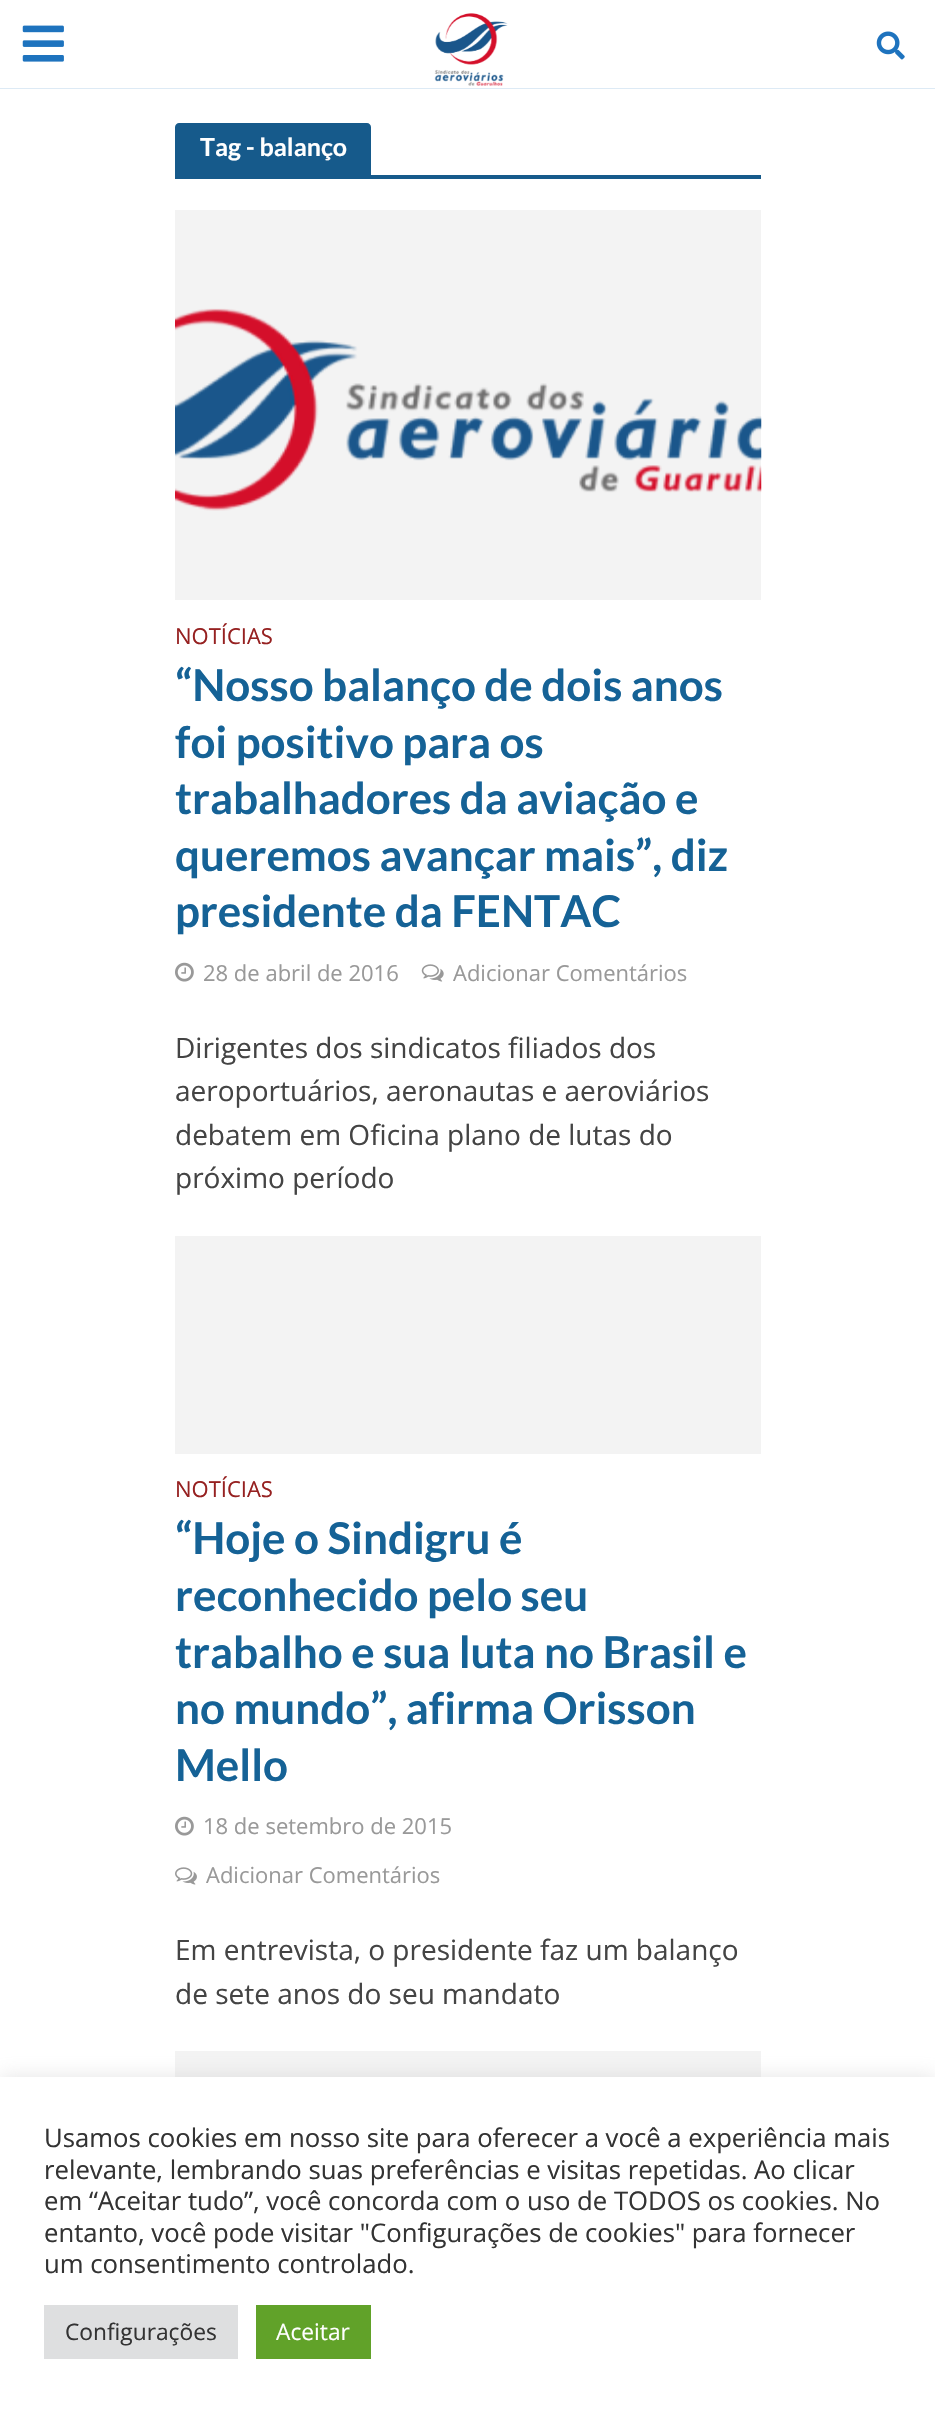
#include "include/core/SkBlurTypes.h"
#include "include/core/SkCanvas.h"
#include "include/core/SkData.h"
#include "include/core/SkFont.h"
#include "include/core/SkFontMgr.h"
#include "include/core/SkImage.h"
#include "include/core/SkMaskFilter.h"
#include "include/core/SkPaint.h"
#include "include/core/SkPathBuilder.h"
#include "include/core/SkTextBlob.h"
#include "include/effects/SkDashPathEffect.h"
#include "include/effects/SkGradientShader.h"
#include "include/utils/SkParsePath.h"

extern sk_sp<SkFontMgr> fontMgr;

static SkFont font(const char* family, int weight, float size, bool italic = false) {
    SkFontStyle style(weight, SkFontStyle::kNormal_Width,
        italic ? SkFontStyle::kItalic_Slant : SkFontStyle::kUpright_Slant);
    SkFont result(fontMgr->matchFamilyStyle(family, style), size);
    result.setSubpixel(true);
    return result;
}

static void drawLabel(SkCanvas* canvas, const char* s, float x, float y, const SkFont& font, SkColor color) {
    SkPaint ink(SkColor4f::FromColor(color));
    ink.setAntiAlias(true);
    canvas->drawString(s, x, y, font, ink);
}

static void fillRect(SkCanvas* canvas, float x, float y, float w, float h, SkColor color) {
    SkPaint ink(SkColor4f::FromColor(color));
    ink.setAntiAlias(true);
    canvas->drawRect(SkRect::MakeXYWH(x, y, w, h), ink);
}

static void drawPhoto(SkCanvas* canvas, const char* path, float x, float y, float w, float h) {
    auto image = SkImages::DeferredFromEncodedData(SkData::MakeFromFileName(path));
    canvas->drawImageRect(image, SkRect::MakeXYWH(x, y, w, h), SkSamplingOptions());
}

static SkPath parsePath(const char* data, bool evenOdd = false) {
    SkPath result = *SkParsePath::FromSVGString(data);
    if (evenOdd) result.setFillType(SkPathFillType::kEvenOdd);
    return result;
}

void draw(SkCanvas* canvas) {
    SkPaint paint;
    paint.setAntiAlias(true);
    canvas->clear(0xFFFFFFFF);
    paint.setColor(0xFFDDEAF5);
    canvas->drawPath(parsePath("M0-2V0H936V88H0V89H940V-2Z"), paint);
    drawPhoto(canvas, "assets/img1.png", 22, 25, 42, 37);
    drawPhoto(canvas, "assets/img2.png", 434, 13, 74, 73);
    drawPhoto(canvas, "assets/img3.png", 876, 31, 29, 29);
    paint.setColor(0xFF165A8B);
    canvas->drawPath(parsePath("M179 123H367C369 123 371 125 371 127V175H175V127C175 125 177 123 179 123Z"), paint);
    SkFont font1 = font("Lato", 700, 25);
    drawLabel(canvas, "Tag - balanço", 200, 156, font1, 0xFFFFFFFF);
    fillRect(canvas, 175, 175, 586, 4, 0xFF165A8B);
    fillRect(canvas, 175, 210, 586, 390, 0xFFF3F3F3);
    drawPhoto(canvas, "assets/img4.png", 175, 308, 587, 203);
    SkFont font2 = font("Open Sans", 400, 22);
    drawLabel(canvas, "NOTÍCIAS", 175, 644, font2, 0xFF962121);
    SkFont font3 = font("Lato", 700, 43.9f);
    drawLabel(canvas, "“Nosso balanço de dois anos", 175, 701, font3, 0xFF156296);
    drawLabel(canvas, "foi positivo para os", 175, 758, font3, 0xFF156296);
    drawLabel(canvas, "trabalhadores da aviação e", 175, 814, font3, 0xFF156296);
    drawLabel(canvas, "queremos avançar mais”, diz", 175, 871, font3, 0xFF156296);
    drawLabel(canvas, "presidente da FENTAC", 175, 927, font3, 0xFF156296);
    drawPhoto(canvas, "assets/img5.png", 175, 962, 19, 20);
    drawLabel(canvas, "28 de abril de 2016", 203, 981, font2, 0xFF999999);
    drawPhoto(canvas, "assets/img6.png", 421, 964, 23, 18);
    drawLabel(canvas, "Adicionar Comentários", 453, 981, font2, 0xFF999999);
    SkFont font4 = font("Open Sans", 400, 28);
    drawLabel(canvas, "Dirigentes dos sindicatos filiados dos", 175, 1058, font4, 0xFF444444);
    drawLabel(canvas, "aeroportuários, aeronautas e aeroviários", 175, 1101, font4, 0xFF444444);
    drawLabel(canvas, "debatem em Oficina plano de lutas do", 175, 1145, font4, 0xFF444444);
    drawLabel(canvas, "próximo período", 175, 1188, font4, 0xFF444444);
    fillRect(canvas, 175, 1236, 586, 218, 0xFFF3F3F3);
    drawLabel(canvas, "NOTÍCIAS", 175, 1497, font2, 0xFF962121);
    drawLabel(canvas, "“Hoje o Sindigru é", 175, 1554, font3, 0xFF156296);
    drawLabel(canvas, "reconhecido pelo seu", 175, 1611, font3, 0xFF156296);
    drawLabel(canvas, "trabalho e sua luta no Brasil e", 175, 1668, font3, 0xFF156296);
    drawLabel(canvas, "no mundo”, afirma Orisson", 175, 1724, font3, 0xFF156296);
    drawLabel(canvas, "Mello", 175, 1781, font3, 0xFF156296);
    drawPhoto(canvas, "assets/img5.png", 175, 1816, 19, 20);
    drawLabel(canvas, "18 de setembro de 2015", 203, 1834, font2, 0xFF999999);
    drawPhoto(canvas, "assets/img7.png", 175, 1867, 22, 18);
    drawLabel(canvas, "Adicionar Comentários", 206, 1883, font2, 0xFF999999);
    drawLabel(canvas, "Em entrevista, o presidente faz um balanço", 175, 1960, font4, 0xFF444444);
    drawLabel(canvas, "de sete anos do seu mandato", 175, 2004, font4, 0xFF444444);
    fillRect(canvas, 175, 2051, 586, 26, 0xFFF3F3F3);
    paint.setColor(0x4DACABAB);
    paint.setMaskFilter(SkMaskFilter::MakeBlur(kNormal_SkBlurStyle, 9));
    canvas->drawRect(SkRect::MakeXYWH(0, 2076, 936, 334), paint);
    paint.setMaskFilter(nullptr);
    fillRect(canvas, 0, 2077, 935, 334, 0xFFFFFFFF);
    SkFont font5 = font("Open Sans", 400, 25.7f);
    drawLabel(canvas, "Usamos cookies em nosso site para oferecer a você a experiência mais", 44, 2147, font5, 0xFF333333);
    drawLabel(canvas, "relevante, lembrando suas preferências e visitas repetidas. Ao clicar", 44, 2179, font5, 0xFF333333);
    drawLabel(canvas, "em “Aceitar tudo”, você concorda com o uso de TODOS os cookies. No", 44, 2210, font5, 0xFF333333);
    drawLabel(canvas, "entanto, você pode visitar \"Configurações de cookies\" para fornecer", 44, 2242, font5, 0xFF333333);
    drawLabel(canvas, "um consentimento controlado.", 44, 2273, font5, 0xFF333333);
    fillRect(canvas, 44, 2305, 194, 54, 0xFFDEDFE0);
    SkFont font6 = font("Open Sans", 400, 22.75f);
    drawLabel(canvas, "Configurações", 65, 2340, font6, 0xFF333333);
    fillRect(canvas, 256, 2305, 115, 54, 0xFF61A229);
    drawLabel(canvas, "Aceitar", 276, 2340, font6, 0xFFFFFFFF);
}
